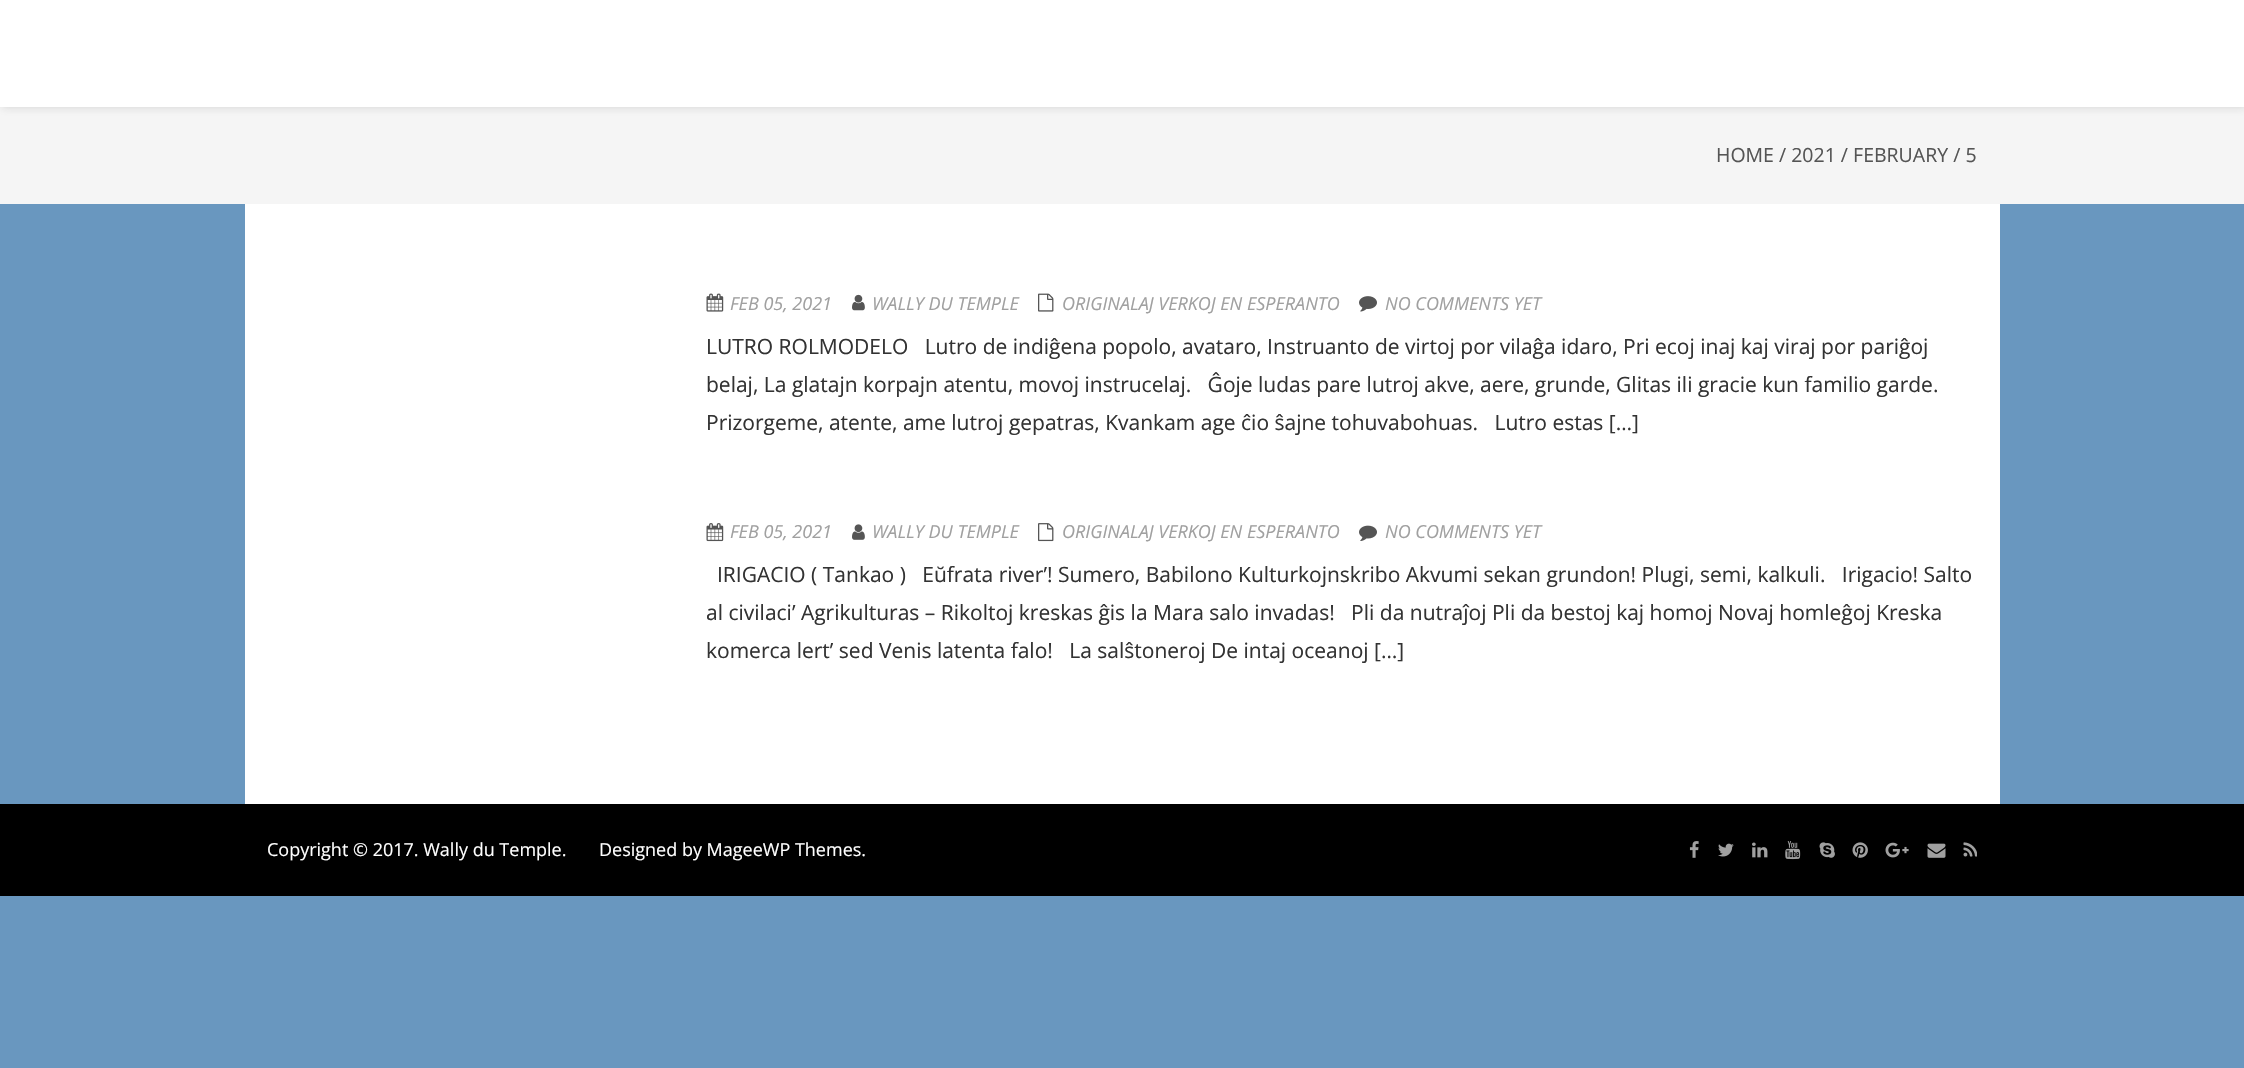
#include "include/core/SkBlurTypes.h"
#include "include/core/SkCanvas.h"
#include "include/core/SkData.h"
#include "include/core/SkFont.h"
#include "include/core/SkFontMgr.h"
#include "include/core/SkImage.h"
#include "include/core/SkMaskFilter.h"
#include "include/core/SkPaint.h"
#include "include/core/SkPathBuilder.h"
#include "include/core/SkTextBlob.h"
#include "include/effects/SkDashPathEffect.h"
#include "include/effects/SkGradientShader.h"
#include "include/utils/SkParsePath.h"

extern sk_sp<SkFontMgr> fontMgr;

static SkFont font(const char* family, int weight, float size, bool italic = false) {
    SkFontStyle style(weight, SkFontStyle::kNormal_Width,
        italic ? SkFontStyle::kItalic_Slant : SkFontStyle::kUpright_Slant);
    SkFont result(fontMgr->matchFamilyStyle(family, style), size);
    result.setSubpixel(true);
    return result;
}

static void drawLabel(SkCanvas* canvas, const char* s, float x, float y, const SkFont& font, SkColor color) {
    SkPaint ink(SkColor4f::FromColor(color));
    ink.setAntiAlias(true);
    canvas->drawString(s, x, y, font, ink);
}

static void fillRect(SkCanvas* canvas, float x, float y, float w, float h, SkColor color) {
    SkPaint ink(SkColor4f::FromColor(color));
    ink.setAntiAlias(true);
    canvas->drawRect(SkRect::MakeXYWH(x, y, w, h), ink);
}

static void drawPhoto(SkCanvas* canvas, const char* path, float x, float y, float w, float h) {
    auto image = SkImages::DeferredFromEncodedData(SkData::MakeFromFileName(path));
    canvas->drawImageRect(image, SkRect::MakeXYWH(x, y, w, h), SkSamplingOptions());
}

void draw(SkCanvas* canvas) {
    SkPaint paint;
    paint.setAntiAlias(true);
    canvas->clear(0xFF6997BF);
    fillRect(canvas, 0, 107, 2244, 97, 0xFFF5F5F5);
    paint.setColor(0x33646464);
    paint.setMaskFilter(SkMaskFilter::MakeBlur(kNormal_SkBlurStyle, 4));
    canvas->drawRect(SkRect::MakeXYWH(2, 2, 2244, 106), paint);
    paint.setMaskFilter(nullptr);
    fillRect(canvas, 0, 0, 2244, 107, 0xFFFFFFFF);
    SkFont font1 = font("Open Sans", 400, 19.5f);
    drawLabel(canvas, "HOME / 2021 / FEBRUARY / 5", 1716, 162, font1, 0xFF555555);
    fillRect(canvas, 245, 204, 1755, 600, 0xFFFFFFFF);
    drawPhoto(canvas, "assets/img1.png", 706, 293, 18, 19);
    SkFont font2 = font("Open Sans", 400, 18, true);
    drawLabel(canvas, "FEB 05, 2021", 730, 310, font2, 0xFFA0A0A0);
    drawPhoto(canvas, "assets/img2.png", 852, 294, 13, 17);
    drawLabel(canvas, "WALLY DU TEMPLE", 872, 310, font2, 0xFFA0A0A0);
    drawPhoto(canvas, "assets/img3.png", 1038, 293, 16, 19);
    drawLabel(canvas, "ORIGINALAJ VERKOJ EN ESPERANTO", 1062, 310, font2, 0xFFA0A0A0);
    drawPhoto(canvas, "assets/img4.png", 1359, 296, 18, 16);
    drawLabel(canvas, "NO COMMENTS YET", 1385, 310, font2, 0xFFA0A0A0);
    SkFont font3 = font("Open Sans", 400, 21);
    drawLabel(canvas, "LUTRO ROLMODELO   Lutro de indiĝena popolo, avataro, Instruanto de virtoj por vilaĝa idaro, Pri ecoj inaj kaj viraj por pariĝoj", 706, 354, font3, 0xFF333333);
    drawLabel(canvas, "belaj, La glatajn korpajn atentu, movoj instrucelaj.   Ĝoje ludas pare lutroj akve, aere, grunde, Glitas ili gracie kun familio garde.", 706, 392, font3, 0xFF333333);
    drawLabel(canvas, "Prizorgeme, atente, ame lutroj gepatras, Kvankam age ĉio ŝajne tohuvabohuas.   Lutro estas […]", 706, 430, font3, 0xFF333333);
    drawPhoto(canvas, "assets/img5.png", 706, 523, 18, 19);
    drawLabel(canvas, "FEB 05, 2021", 730, 538, font2, 0xFFA0A0A0);
    drawPhoto(canvas, "assets/img6.png", 852, 524, 13, 16);
    drawLabel(canvas, "WALLY DU TEMPLE", 872, 538, font2, 0xFFA0A0A0);
    drawPhoto(canvas, "assets/img7.png", 1038, 523, 16, 19);
    drawLabel(canvas, "ORIGINALAJ VERKOJ EN ESPERANTO", 1062, 538, font2, 0xFFA0A0A0);
    drawPhoto(canvas, "assets/img8.png", 1359, 525, 18, 16);
    drawLabel(canvas, "NO COMMENTS YET", 1385, 538, font2, 0xFFA0A0A0);
    drawLabel(canvas, "IRIGACIO ( Tankao )   Eŭfrata river’! Sumero, Babilono Kulturkojnskribo Akvumi sekan grundon! Plugi, semi, kalkuli.   Irigacio! Salto", 717, 582, font3, 0xFF333333);
    drawLabel(canvas, "al civilaci’ Agrikulturas – Rikoltoj kreskas ĝis la Mara salo invadas!   Pli da nutraĵoj Pli da bestoj kaj homoj Novaj homleĝoj Kreska", 706, 620, font3, 0xFF333333);
    drawLabel(canvas, "komerca lert’ sed Venis latenta falo!   La salŝtoneroj De intaj oceanoj […]", 706, 658, font3, 0xFF333333);
    fillRect(canvas, 0, 804, 2244, 92, 0xFF000000);
    SkFont font4 = font("Open Sans", 400, 18);
    drawLabel(canvas, "Copyright © 2017. Wally du Temple.", 267, 856, font4, 0xFFFFFFFF);
    drawLabel(canvas, "Designed by MageeWP Themes.", 599, 856, font4, 0xFFFFFFFF);
    drawPhoto(canvas, "assets/img9.png", 1689, 841, 10, 17);
    drawPhoto(canvas, "assets/img10.png", 1718, 843, 16, 14);
    drawPhoto(canvas, "assets/img11.png", 1752, 842, 16, 16);
    drawPhoto(canvas, "assets/img12.png", 1785, 841, 16, 19);
    drawPhoto(canvas, "assets/img13.png", 1819, 842, 16, 16);
    drawPhoto(canvas, "assets/img14.png", 1852, 842, 16, 16);
    drawPhoto(canvas, "assets/img15.png", 1885, 842, 24, 16);
    drawPhoto(canvas, "assets/img16.png", 1927, 843, 19, 15);
    drawPhoto(canvas, "assets/img17.png", 1963, 842, 14, 15);
}
